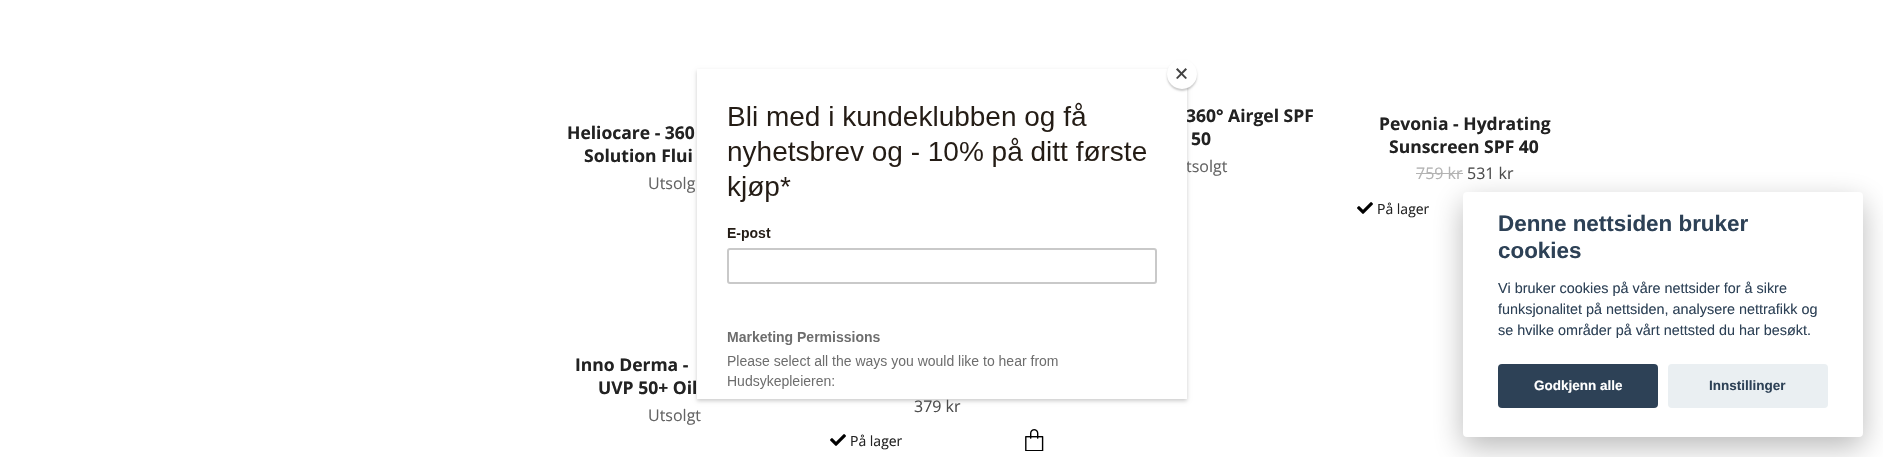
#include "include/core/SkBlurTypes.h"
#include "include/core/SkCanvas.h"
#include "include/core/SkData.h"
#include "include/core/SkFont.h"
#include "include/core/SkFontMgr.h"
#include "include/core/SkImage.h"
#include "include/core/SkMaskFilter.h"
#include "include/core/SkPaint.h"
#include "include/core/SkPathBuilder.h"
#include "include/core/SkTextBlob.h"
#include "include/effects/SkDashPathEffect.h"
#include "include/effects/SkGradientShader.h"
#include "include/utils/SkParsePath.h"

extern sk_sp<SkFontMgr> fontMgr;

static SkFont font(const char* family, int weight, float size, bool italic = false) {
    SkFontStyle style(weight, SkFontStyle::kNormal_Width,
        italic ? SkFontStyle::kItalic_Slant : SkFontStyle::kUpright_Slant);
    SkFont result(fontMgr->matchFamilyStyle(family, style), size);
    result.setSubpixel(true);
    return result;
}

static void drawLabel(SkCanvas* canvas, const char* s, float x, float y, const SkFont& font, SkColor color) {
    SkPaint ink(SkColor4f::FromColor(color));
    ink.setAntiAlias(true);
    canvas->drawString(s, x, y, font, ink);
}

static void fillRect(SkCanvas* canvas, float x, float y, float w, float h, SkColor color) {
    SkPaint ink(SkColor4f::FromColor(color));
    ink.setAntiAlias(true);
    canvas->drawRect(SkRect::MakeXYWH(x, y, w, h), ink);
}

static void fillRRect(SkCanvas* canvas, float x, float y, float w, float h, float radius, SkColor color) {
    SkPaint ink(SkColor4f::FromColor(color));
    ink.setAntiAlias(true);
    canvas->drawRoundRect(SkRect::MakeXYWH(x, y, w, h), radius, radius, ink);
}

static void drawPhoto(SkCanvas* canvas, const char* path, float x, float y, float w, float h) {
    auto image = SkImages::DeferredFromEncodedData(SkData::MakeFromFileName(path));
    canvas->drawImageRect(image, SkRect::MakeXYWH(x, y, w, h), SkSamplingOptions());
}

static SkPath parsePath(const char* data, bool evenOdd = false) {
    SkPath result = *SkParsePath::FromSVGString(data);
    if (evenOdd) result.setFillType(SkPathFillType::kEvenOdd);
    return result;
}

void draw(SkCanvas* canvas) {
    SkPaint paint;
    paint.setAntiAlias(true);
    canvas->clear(0xFFFFFFFF);
    paint.setColor(0x33000000);
    paint.setMaskFilter(SkMaskFilter::MakeBlur(kNormal_SkBlurStyle, 1));
    canvas->drawRoundRect(SkRect::MakeXYWH(1167, 61, 30, 30), 15, 15, paint);
    paint.setMaskFilter(nullptr);
    canvas->save();
    canvas->clipPath(parsePath("M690 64H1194V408H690ZM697 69H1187V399H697Z", true), true);
    paint.setMaskFilter(SkMaskFilter::MakeBlur(kNormal_SkBlurStyle, 2));
    canvas->drawRect(SkRect::MakeXYWH(697, 71, 490, 330), paint);
    paint.setMaskFilter(nullptr);
    canvas->restore();
    paint.setColor(0xFFFFFFFF);
    canvas->drawCircle(1182, 74, 15, paint);
    paint.setColor(0xFF414141);
    canvas->drawPath(parsePath("M1185.5 68L1187 69.5L1177.5 79L1176 78Z"), paint);
    canvas->drawPath(parsePath("M1176 69.5L1177.5 68L1187 78L1185.5 79Z"), paint);
    SkFont font1 = font("Open Sans", 700, 17.5f);
    drawLabel(canvas, "360° Airgel SPF", 1186, 122, font1, 0xFF222222);
    SkFont font2 = font("Open Sans", 400, 16);
    drawLabel(canvas, "tsolgt", 1186, 172, font2, 0xFF646464);
    drawPhoto(canvas, "assets/img1.png", 697, 102, 490, 297);
    drawLabel(canvas, "Heliocare - 360", 567, 139, font1, 0xFF222222);
    drawLabel(canvas, "Solution Flui", 584, 162, font1, 0xFF222222);
    drawLabel(canvas, "Utsolg", 648, 189, font2, 0xFF646464);
    drawLabel(canvas, "50", 1191, 145, font1, 0xFF222222);
    drawLabel(canvas, "Pevonia - Hydrating", 1379, 130, font1, 0xFF222222);
    drawLabel(canvas, "Sunscreen SPF 40", 1389, 153, font1, 0xFF222222);
    drawLabel(canvas, "759 kr", 1416, 179, font2, 0xFFB3B3B3);
    fillRect(canvas, 1416, 173, 47, 1, 0xFFB3B3B3);
    drawLabel(canvas, "531 kr", 1467, 179, font2, 0xFF4D4D4D);
    drawPhoto(canvas, "assets/img2.png", 1357, 202, 16, 12);
    SkFont font3 = font("Open Sans", 400, 14);
    drawLabel(canvas, "På lager", 1377, 214, font3, 0xFF222222);
    drawLabel(canvas, "Inno Derma -", 575, 371, font1, 0xFF222222);
    drawLabel(canvas, "UVP 50+ Oil", 598, 394, font1, 0xFF222222);
    drawLabel(canvas, "Utsolgt", 648, 421, font2, 0xFF646464);
    drawLabel(canvas, "379 kr", 914, 412, font2, 0xFF4D4D4D);
    drawPhoto(canvas, "assets/img2.png", 830, 434, 16, 12);
    drawLabel(canvas, "På lager", 850, 446, font3, 0xFF222222);
    drawPhoto(canvas, "assets/img3.png", 1025, 429, 19, 22);
    paint.setColor(0x47020203);
    paint.setMaskFilter(SkMaskFilter::MakeBlur(kNormal_SkBlurStyle, 15));
    canvas->drawRoundRect(SkRect::MakeXYWH(1463, 202, 400, 245), 4, 4, paint);
    paint.setMaskFilter(nullptr);
    fillRRect(canvas, 1463, 192, 400, 245, 4, 0xFFFFFFFF);
    SkFont font4 = font("Liberation Sans", 700, 22.4f);
    drawLabel(canvas, "Denne nettsiden bruker", 1498, 231, font4, 0xFF2D4156);
    drawLabel(canvas, "cookies", 1498, 258, font4, 0xFF2D4156);
    SkFont font5 = font("Liberation Sans", 400, 14.4f);
    drawLabel(canvas, "Vi bruker cookies på våre nettsider for å sikre", 1498, 293, font5, 0xFF2D4156);
    drawLabel(canvas, "funksjonalitet på nettsiden, analysere nettrafikk og", 1498, 314, font5, 0xFF2D4156);
    drawLabel(canvas, "se hvilke områder på vårt nettsted du har besøkt.", 1498, 335, font5, 0xFF2D4156);
    fillRRect(canvas, 1498, 364, 160, 44, 4, 0xFF2D4156);
    SkFont font6 = font("Liberation Sans", 700, 13.5f);
    drawLabel(canvas, "Godkjenn alle", 1534, 390, font6, 0xFFFFFFFF);
    fillRRect(canvas, 1668, 364, 160, 44, 4, 0xFFEAEFF2);
    drawLabel(canvas, "Innstillinger", 1709, 390, font6, 0xFF2D4156);
}
